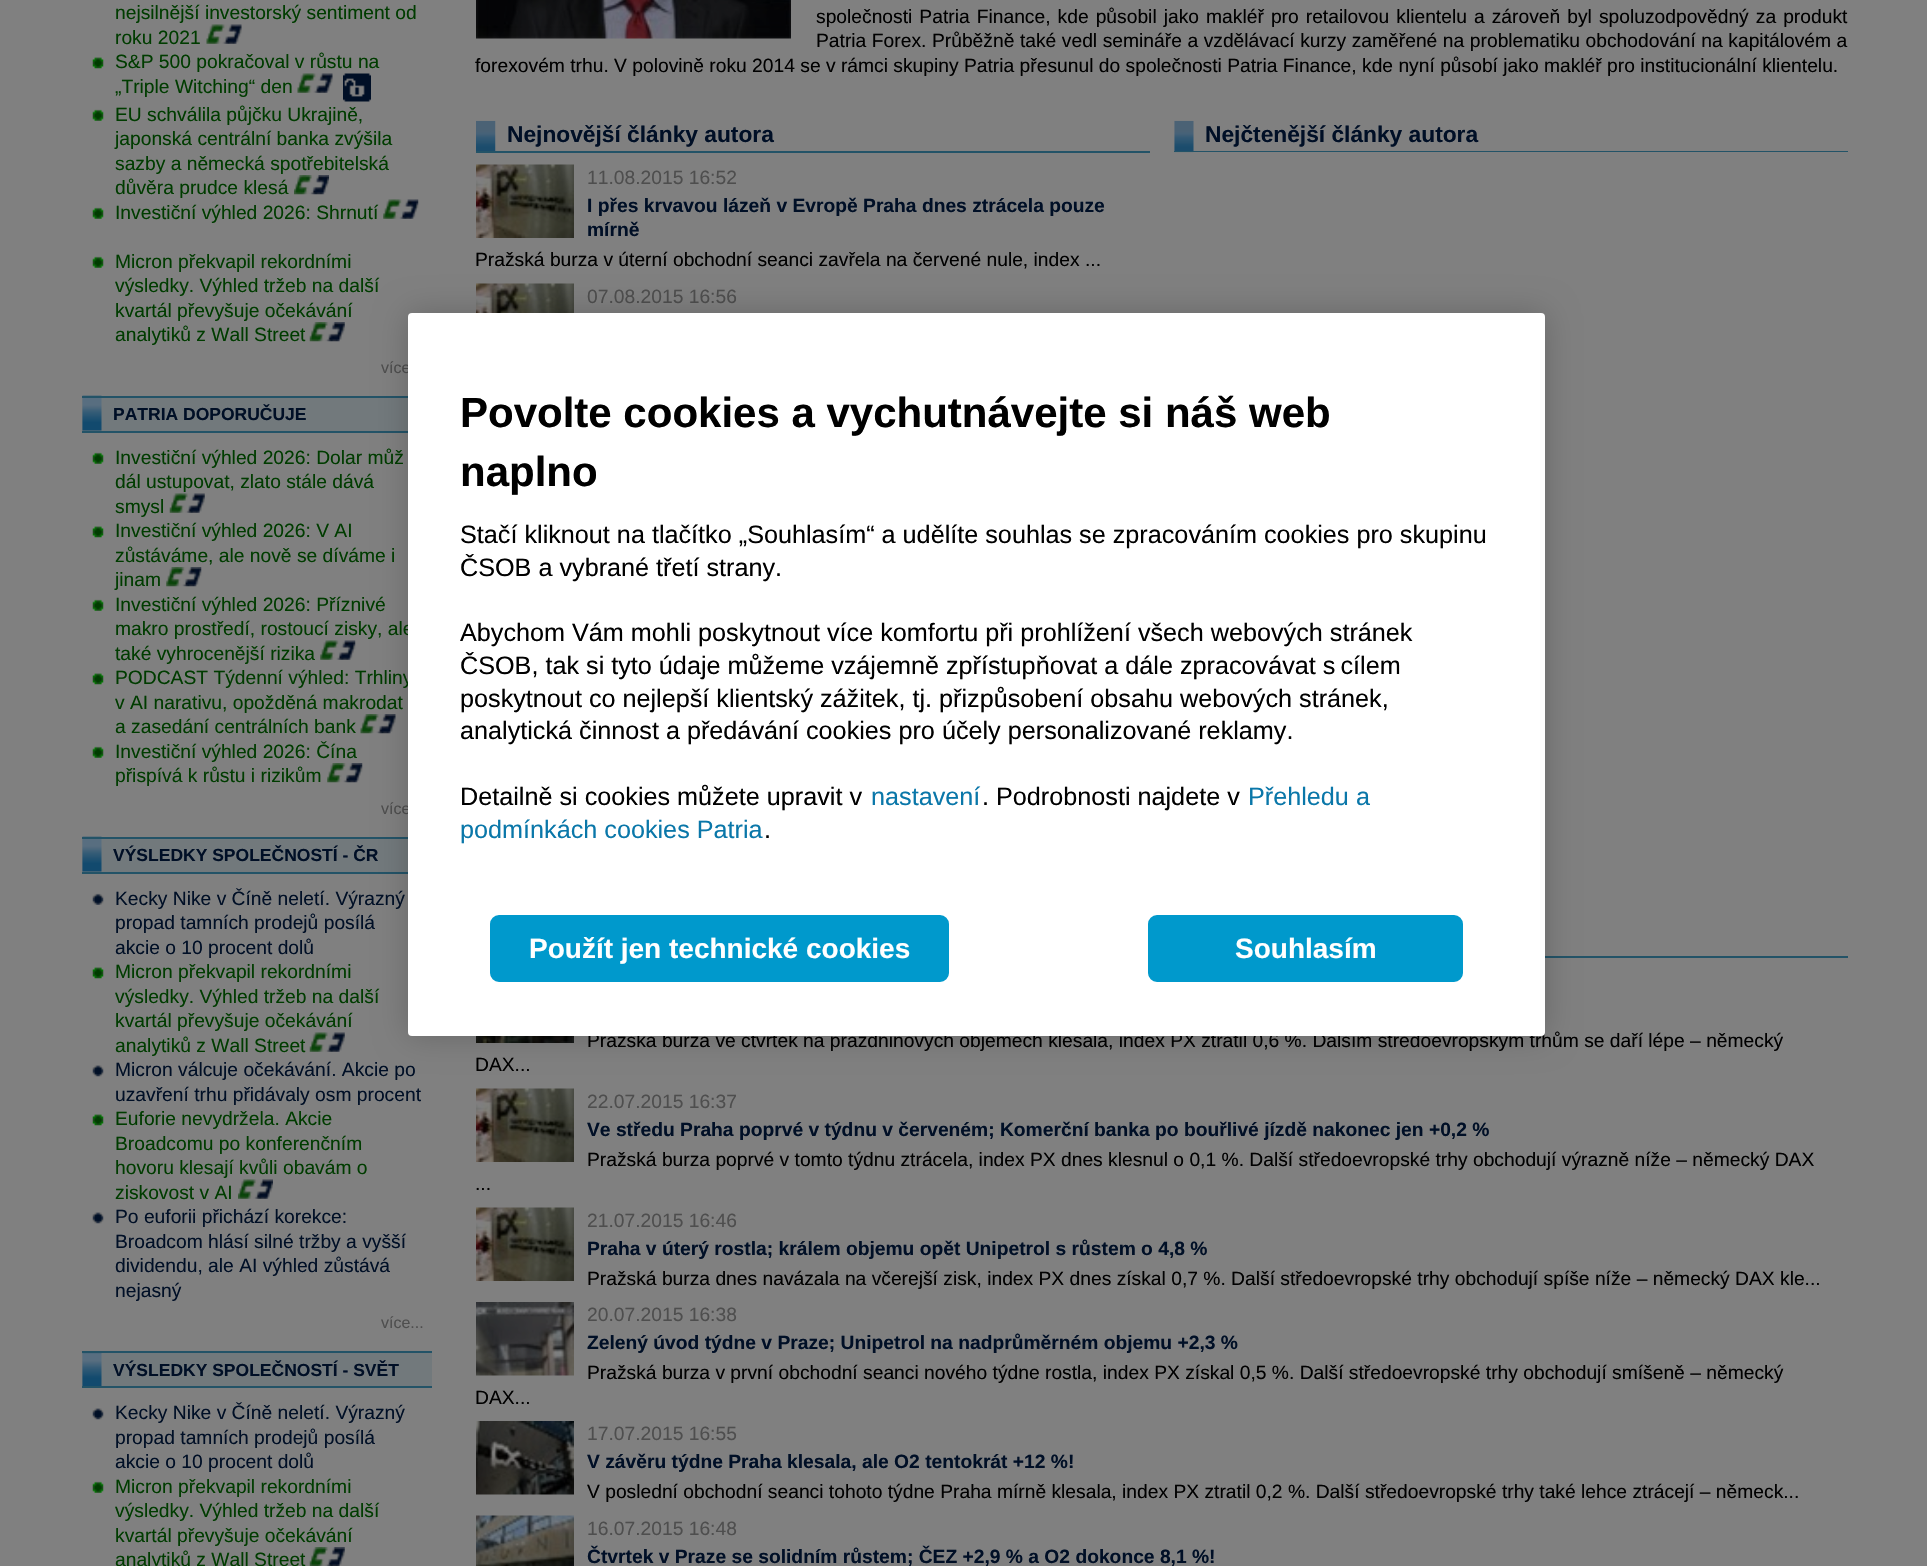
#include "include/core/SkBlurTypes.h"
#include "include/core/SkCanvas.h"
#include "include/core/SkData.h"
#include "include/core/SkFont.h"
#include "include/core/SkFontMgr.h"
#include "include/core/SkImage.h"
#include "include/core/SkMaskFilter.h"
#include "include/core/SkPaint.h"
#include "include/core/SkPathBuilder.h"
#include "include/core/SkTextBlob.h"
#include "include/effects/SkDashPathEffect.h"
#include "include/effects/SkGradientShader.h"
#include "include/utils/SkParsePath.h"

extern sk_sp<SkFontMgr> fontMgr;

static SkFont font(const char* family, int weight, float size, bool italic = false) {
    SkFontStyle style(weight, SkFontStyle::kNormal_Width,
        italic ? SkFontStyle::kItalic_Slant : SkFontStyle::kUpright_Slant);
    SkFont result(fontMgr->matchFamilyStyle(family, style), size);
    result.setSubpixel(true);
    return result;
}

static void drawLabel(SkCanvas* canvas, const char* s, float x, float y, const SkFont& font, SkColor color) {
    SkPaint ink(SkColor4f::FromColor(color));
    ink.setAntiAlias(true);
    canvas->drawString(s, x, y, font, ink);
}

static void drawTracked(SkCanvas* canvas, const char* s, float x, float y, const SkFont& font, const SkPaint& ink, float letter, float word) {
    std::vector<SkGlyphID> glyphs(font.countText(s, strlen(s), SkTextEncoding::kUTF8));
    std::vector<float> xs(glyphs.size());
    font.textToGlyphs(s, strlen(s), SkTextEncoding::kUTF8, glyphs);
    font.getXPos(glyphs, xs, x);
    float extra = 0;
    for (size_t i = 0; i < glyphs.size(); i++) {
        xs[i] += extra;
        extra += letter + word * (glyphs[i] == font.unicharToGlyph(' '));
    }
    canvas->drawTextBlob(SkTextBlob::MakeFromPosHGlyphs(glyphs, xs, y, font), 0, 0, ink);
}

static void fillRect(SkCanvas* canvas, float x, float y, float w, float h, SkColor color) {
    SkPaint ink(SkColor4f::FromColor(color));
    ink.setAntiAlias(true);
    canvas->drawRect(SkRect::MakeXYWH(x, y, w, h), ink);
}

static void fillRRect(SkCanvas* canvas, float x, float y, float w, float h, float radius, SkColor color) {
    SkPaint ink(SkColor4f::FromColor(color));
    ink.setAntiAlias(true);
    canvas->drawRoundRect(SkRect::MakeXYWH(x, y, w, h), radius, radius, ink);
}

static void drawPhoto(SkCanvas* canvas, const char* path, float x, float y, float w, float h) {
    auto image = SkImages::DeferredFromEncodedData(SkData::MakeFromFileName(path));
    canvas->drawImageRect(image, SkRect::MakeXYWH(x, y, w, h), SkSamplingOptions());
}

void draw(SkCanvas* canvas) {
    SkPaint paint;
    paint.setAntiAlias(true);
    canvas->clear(0xFF808080);
    SkFont font1 = font("Liberation Sans", 400, 19.25f);
    drawLabel(canvas, "nejsilnější investorský sentiment od", 115, 19, font1, 0xFF003C00);
    drawLabel(canvas, "roku 2021", 115, 44, font1, 0xFF003C00);
    drawPhoto(canvas, "assets/img1.png", 206, 24, 36, 20);
    drawPhoto(canvas, "assets/img2.png", 92, 57, 12, 12);
    drawLabel(canvas, "S&P 500 pokračoval v růstu na", 115, 68, font1, 0xFF003C00);
    drawLabel(canvas, "„Triple Witching“ den", 115, 93, font1, 0xFF003C00);
    drawPhoto(canvas, "assets/img3.png", 297, 73, 36, 20);
    drawPhoto(canvas, "assets/img4.png", 343, 73, 28, 29);
    drawPhoto(canvas, "assets/img5.png", 92, 109, 12, 12);
    drawLabel(canvas, "EU schválila půjčku Ukrajině,", 115, 121, font1, 0xFF003C00);
    drawLabel(canvas, "japonská centrální banka zvýšila", 115, 145, font1, 0xFF003C00);
    drawLabel(canvas, "sazby a německá spotřebitelská", 115, 170, font1, 0xFF003C00);
    drawLabel(canvas, "důvěra prudce klesá", 115, 194, font1, 0xFF003C00);
    drawPhoto(canvas, "assets/img6.png", 294, 175, 35, 20);
    drawPhoto(canvas, "assets/img5.png", 92, 207, 12, 12);
    drawLabel(canvas, "Investiční výhled 2026: Shrnutí", 115, 219, font1, 0xFF003C00);
    drawPhoto(canvas, "assets/img7.png", 383, 199, 36, 20);
    drawPhoto(canvas, "assets/img5.png", 92, 256, 12, 12);
    drawLabel(canvas, "Micron překvapil rekordními", 115, 268, font1, 0xFF003C00);
    drawLabel(canvas, "výsledky. Výhled tržeb na další", 115, 292, font1, 0xFF003C00);
    drawLabel(canvas, "kvartál převyšuje očekávání", 115, 317, font1, 0xFF003C00);
    drawLabel(canvas, "analytiků z Wall Street", 115, 341, font1, 0xFF003C00);
    drawPhoto(canvas, "assets/img8.png", 309, 322, 36, 20);
    SkFont font2 = font("Liberation Sans", 400, 16);
    drawLabel(canvas, "více", 381, 373, font2, 0xFF4E4E4E);
    fillRect(canvas, 82, 398, 326, 33, 0xFF72797C);
    drawPhoto(canvas, "assets/img9.png", 82, 395, 20, 36);
    fillRect(canvas, 82, 396, 326, 2, 0xFF235367);
    SkFont font3 = font("Liberation Sans", 700, 17.5f);
    drawLabel(canvas, "PATRIA DOPORUČUJE", 113, 420, font3, 0xFF000F26);
    fillRect(canvas, 82, 431, 326, 2, 0xFF235367);
    drawPhoto(canvas, "assets/img5.png", 92, 452, 12, 12);
    drawLabel(canvas, "Investiční výhled 2026: Dolar můž", 115, 464, font1, 0xFF003C00);
    drawLabel(canvas, "dál ustupovat, zlato stále dává", 115, 488, font1, 0xFF003C00);
    drawLabel(canvas, "smysl", 115, 513, font1, 0xFF003C00);
    drawPhoto(canvas, "assets/img10.png", 169, 493, 36, 20);
    drawPhoto(canvas, "assets/img2.png", 92, 526, 12, 12);
    drawLabel(canvas, "Investiční výhled 2026: V AI", 115, 537, font1, 0xFF003C00);
    drawLabel(canvas, "zůstáváme, ale nově se díváme i", 115, 562, font1, 0xFF003C00);
    drawLabel(canvas, "jinam", 115, 586, font1, 0xFF003C00);
    drawPhoto(canvas, "assets/img11.png", 166, 567, 36, 20);
    drawPhoto(canvas, "assets/img5.png", 92, 599, 12, 12);
    drawLabel(canvas, "Investiční výhled 2026: Příznivé", 115, 611, font1, 0xFF003C00);
    drawLabel(canvas, "makro prostředí, rostoucí zisky, ale", 115, 635, font1, 0xFF003C00);
    drawLabel(canvas, "také vyhrocenější rizika", 115, 660, font1, 0xFF003C00);
    drawPhoto(canvas, "assets/img7.png", 320, 640, 36, 20);
    drawPhoto(canvas, "assets/img2.png", 92, 673, 12, 12);
    drawLabel(canvas, "PODCAST Týdenní výhled: Trhliny", 115, 684, font1, 0xFF003C00);
    drawLabel(canvas, "v AI narativu, opožděná makrodat", 115, 709, font1, 0xFF003C00);
    drawLabel(canvas, "a zasedání centrálních bank", 115, 733, font1, 0xFF003C00);
    drawPhoto(canvas, "assets/img12.png", 360, 714, 36, 20);
    drawPhoto(canvas, "assets/img5.png", 92, 746, 12, 12);
    drawLabel(canvas, "Investiční výhled 2026: Čína", 115, 758, font1, 0xFF003C00);
    drawLabel(canvas, "přispívá k růstu i rizikům", 115, 782, font1, 0xFF003C00);
    drawPhoto(canvas, "assets/img13.png", 327, 763, 36, 20);
    drawLabel(canvas, "více", 381, 814, font2, 0xFF4E4E4E);
    fillRect(canvas, 82, 839, 326, 33, 0xFF72797C);
    drawPhoto(canvas, "assets/img9.png", 82, 836, 20, 36);
    fillRect(canvas, 82, 837, 326, 2, 0xFF235367);
    drawLabel(canvas, "VÝSLEDKY SPOLEČNOSTÍ - ČR", 113, 861, font3, 0xFF000F26);
    fillRect(canvas, 82, 872, 326, 2, 0xFF235367);
    drawPhoto(canvas, "assets/img14.png", 92, 893, 12, 12);
    drawLabel(canvas, "Kecky Nike v Číně neletí. Výrazný", 115, 905, font1, 0xFF000F26);
    drawLabel(canvas, "propad tamních prodejů posílá", 115, 929, font1, 0xFF000F26);
    drawLabel(canvas, "akcie o 10 procent dolů", 115, 954, font1, 0xFF000F26);
    drawPhoto(canvas, "assets/img2.png", 92, 967, 12, 12);
    drawLabel(canvas, "Micron překvapil rekordními", 115, 978, font1, 0xFF003C00);
    drawLabel(canvas, "výsledky. Výhled tržeb na další", 115, 1003, font1, 0xFF003C00);
    drawLabel(canvas, "kvartál převyšuje očekávání", 115, 1027, font1, 0xFF003C00);
    drawLabel(canvas, "analytiků z Wall Street", 115, 1052, font1, 0xFF003C00);
    drawPhoto(canvas, "assets/img15.png", 309, 1032, 36, 20);
    drawPhoto(canvas, "assets/img16.png", 92, 1065, 12, 12);
    drawLabel(canvas, "Micron válcuje očekávání. Akcie po", 115, 1076, font1, 0xFF000F26);
    drawLabel(canvas, "uzavření trhu přidávaly osm procent", 115, 1101, font1, 0xFF000F26);
    drawPhoto(canvas, "assets/img2.png", 92, 1114, 12, 12);
    drawLabel(canvas, "Euforie nevydržela. Akcie", 115, 1125, font1, 0xFF003C00);
    drawLabel(canvas, "Broadcomu po konferenčním", 115, 1150, font1, 0xFF003C00);
    drawLabel(canvas, "hovoru klesají kvůli obavám o", 115, 1174, font1, 0xFF003C00);
    drawLabel(canvas, "ziskovost v AI", 115, 1199, font1, 0xFF003C00);
    drawPhoto(canvas, "assets/img17.png", 238, 1179, 35, 20);
    drawPhoto(canvas, "assets/img16.png", 92, 1212, 12, 12);
    drawLabel(canvas, "Po euforii přichází korekce:", 115, 1223, font1, 0xFF000F26);
    drawLabel(canvas, "Broadcom hlásí silné tržby a vyšší", 115, 1248, font1, 0xFF000F26);
    drawLabel(canvas, "dividendu, ale AI výhled zůstává", 115, 1272, font1, 0xFF000F26);
    drawLabel(canvas, "nejasný", 115, 1297, font1, 0xFF000F26);
    drawLabel(canvas, "více...", 381, 1328, font2, 0xFF4E4E4E);
    fillRect(canvas, 82, 1353, 350, 33, 0xFF72797C);
    drawPhoto(canvas, "assets/img18.png", 82, 1353, 20, 33);
    fillRect(canvas, 82, 1351, 350, 2, 0xFF235367);
    drawLabel(canvas, "VÝSLEDKY SPOLEČNOSTÍ - SVĚT", 113, 1376, font3, 0xFF000F26);
    fillRect(canvas, 82, 1386, 350, 2, 0xFF235367);
    drawPhoto(canvas, "assets/img16.png", 92, 1408, 12, 12);
    drawLabel(canvas, "Kecky Nike v Číně neletí. Výrazný", 115, 1419, font1, 0xFF000F26);
    drawLabel(canvas, "propad tamních prodejů posílá", 115, 1444, font1, 0xFF000F26);
    drawLabel(canvas, "akcie o 10 procent dolů", 115, 1468, font1, 0xFF000F26);
    drawPhoto(canvas, "assets/img5.png", 92, 1481, 12, 12);
    drawLabel(canvas, "Micron překvapil rekordními", 115, 1493, font1, 0xFF003C00);
    drawLabel(canvas, "výsledky. Výhled tržeb na další", 115, 1517, font1, 0xFF003C00);
    drawLabel(canvas, "kvartál převyšuje očekávání", 115, 1542, font1, 0xFF003C00);
    drawLabel(canvas, "analytiků z Wall Street", 115, 1566, font1, 0xFF003C00);
    drawPhoto(canvas, "assets/img19.png", 309, 1547, 36, 19);
    drawPhoto(canvas, "assets/img20.png", 476, 0, 315, 39);
    paint.setColor(0xFF000000);
    drawTracked(canvas, "společnosti Patria Finance, kde působil jako makléř pro retailovou klientelu a zároveň byl spoluzodpovědný za produkt", 816, 23, font1, paint, 0, 1.7f);
    drawTracked(canvas, "Patria Forex. Průběžně také vedl semináře a vzdělávací kurzy zaměřené na problematiku obchodování na kapitálovém a", 816, 47, font1, paint, 0, 0.2f);
    drawLabel(canvas, "forexovém trhu. V polovině roku 2014 se v rámci skupiny Patria přesunul do společnosti Patria Finance, kde nyní působí jako makléř pro institucionální klientelu.", 475, 72, font1, 0xFF000000);
    drawPhoto(canvas, "assets/img21.png", 476, 120, 20, 31);
    fillRect(canvas, 476, 151, 674, 2, 0xFF235367);
    SkFont font4 = font("Liberation Sans", 700, 22.75f);
    drawLabel(canvas, "Nejnovější články autora", 507, 142, font4, 0xFF000F26);
    drawPhoto(canvas, "assets/img22.png", 476, 164, 98, 74);
    drawLabel(canvas, "11.08.2015 16:52", 587, 184, font1, 0xFF4E4E4E);
    SkFont font5 = font("Liberation Sans", 700, 19.25f);
    drawLabel(canvas, "I přes krvavou lázeň v Evropě Praha dnes ztrácela pouze", 587, 212, font5, 0xFF000F26);
    drawLabel(canvas, "mírně", 587, 236, font5, 0xFF000F26);
    drawLabel(canvas, "Pražská burza v úterní obchodní seanci zavřela na červené nule, index ...", 475, 266, font1, 0xFF000000);
    drawPhoto(canvas, "assets/img23.png", 476, 283, 98, 30);
    drawLabel(canvas, "07.08.2015 16:56", 587, 303, font1, 0xFF4E4E4E);
    drawPhoto(canvas, "assets/img24.png", 1174, 120, 20, 33);
    fillRect(canvas, 1174, 151, 674, 1, 0xFF235367);
    drawLabel(canvas, "Nejčtenější články autora", 1205, 142, font4, 0xFF000F26);
    fillRect(canvas, 1545, 956, 303, 2, 0xFF235367);
    drawLabel(canvas, "Pražská burza ve čtvrtek na prázdninových objemech klesala, index PX ztratil 0,6 %. Dalším středoevropským trhům se daří lépe – německý", 587, 1047, font1, 0xFF000000);
    drawLabel(canvas, "DAX...", 475, 1071, font1, 0xFF000000);
    drawPhoto(canvas, "assets/img25.png", 476, 1036, 98, 7);
    drawPhoto(canvas, "assets/img22.png", 476, 1088, 98, 74);
    drawLabel(canvas, "22.07.2015 16:37", 587, 1108, font1, 0xFF4E4E4E);
    drawLabel(canvas, "Ve středu Praha poprvé v týdnu v červeném; Komerční banka po bouřlivé jízdě nakonec jen +0,2 %", 587, 1136, font5, 0xFF000F26);
    drawLabel(canvas, "Pražská burza poprvé v tomto týdnu ztrácela, index PX dnes klesnul o 0,1 %. Další středoevropské trhy obchodují výrazně níže – německý DAX", 587, 1166, font1, 0xFF000000);
    drawLabel(canvas, "...", 475, 1190, font1, 0xFF000000);
    drawPhoto(canvas, "assets/img22.png", 476, 1207, 98, 74);
    drawLabel(canvas, "21.07.2015 16:46", 587, 1227, font1, 0xFF4E4E4E);
    drawLabel(canvas, "Praha v úterý rostla; králem objemu opět Unipetrol s růstem o 4,8 %", 587, 1255, font5, 0xFF000F26);
    drawLabel(canvas, "Pražská burza dnes navázala na včerejší zisk, index PX dnes získal 0,7 %. Další středoevropské trhy obchodují spíše níže – německý DAX kle...", 587, 1285, font1, 0xFF000000);
    drawPhoto(canvas, "assets/img26.png", 476, 1302, 98, 74);
    drawLabel(canvas, "20.07.2015 16:38", 587, 1321, font1, 0xFF4E4E4E);
    drawLabel(canvas, "Zelený úvod týdne v Praze; Unipetrol na nadprůměrném objemu +2,3 %", 587, 1349, font5, 0xFF000F26);
    drawLabel(canvas, "Pražská burza v první obchodní seanci nového týdne rostla, index PX získal 0,5 %. Další středoevropské trhy obchodují smíšeně – německý", 587, 1379, font1, 0xFF000000);
    drawLabel(canvas, "DAX...", 475, 1404, font1, 0xFF000000);
    drawPhoto(canvas, "assets/img27.png", 476, 1421, 98, 74);
    drawLabel(canvas, "17.07.2015 16:55", 587, 1440, font1, 0xFF4E4E4E);
    drawLabel(canvas, "V závěru týdne Praha klesala, ale O2 tentokrát +12 %!", 587, 1468, font5, 0xFF000F26);
    drawLabel(canvas, "V poslední obchodní seanci tohoto týdne Praha mírně klesala, index PX ztratil 0,2 %. Další středoevropské trhy také lehce ztrácejí – německ...", 587, 1498, font1, 0xFF000000);
    drawPhoto(canvas, "assets/img28.png", 476, 1515, 98, 51);
    drawLabel(canvas, "16.07.2015 16:48", 587, 1535, font1, 0xFF4E4E4E);
    drawLabel(canvas, "Čtvrtek v Praze se solidním růstem; ČEZ +2,9 % a O2 dokonce 8,1 %!", 587, 1563, font5, 0xFF000F26);
    paint.setColor(0x33000000);
    paint.setMaskFilter(SkMaskFilter::MakeBlur(kNormal_SkBlurStyle, 16));
    canvas->drawRoundRect(SkRect::MakeXYWH(408, 313, 1137, 723), 4, 4, paint);
    paint.setMaskFilter(nullptr);
    fillRRect(canvas, 408, 313, 1137, 723, 4, 0xFFFFFFFF);
    SkFont font6 = font("Liberation Sans", 700, 42);
    drawLabel(canvas, "Povolte cookies a vychutnávejte si náš web", 460, 427, font6, 0xFF000000);
    drawLabel(canvas, "naplno", 460, 486, font6, 0xFF000000);
    SkFont font7 = font("Liberation Sans", 400, 25.2f);
    drawLabel(canvas, "Stačí kliknout na tlačítko „Souhlasím“ a udělíte souhlas se zpracováním cookies pro skupinu", 460, 543, font7, 0xFF000000);
    drawLabel(canvas, "ČSOB a vybrané třetí strany.", 460, 576, font7, 0xFF000000);
    drawLabel(canvas, "Abychom Vám mohli poskytnout více komfortu při prohlížení všech webových stránek", 460, 641, font7, 0xFF000000);
    drawLabel(canvas, "ČSOB, tak si tyto údaje můžeme vzájemně zpřístupňovat a dále zpracovávat s cílem", 460, 674, font7, 0xFF000000);
    drawLabel(canvas, "poskytnout co nejlepší klientský zážitek, tj. přizpůsobení obsahu webových stránek,", 460, 707, font7, 0xFF000000);
    drawLabel(canvas, "analytická činnost a předávání cookies pro účely personalizované reklamy.", 460, 739, font7, 0xFF000000);
    drawLabel(canvas, "Detailně si cookies můžete upravit v", 460, 805, font7, 0xFF000000);
    drawLabel(canvas, "nastavení", 871, 805, font7, 0xFF0A77A9);
    drawLabel(canvas, ". Podrobnosti najdete v", 982, 805, font7, 0xFF000000);
    drawLabel(canvas, "Přehledu a", 1248, 805, font7, 0xFF0A77A9);
    drawLabel(canvas, "podmínkách cookies Patria", 460, 838, font7, 0xFF0A77A9);
    drawLabel(canvas, ".", 764, 838, font7, 0xFF000000);
    paint.setColor(0xFF0099CC);
    canvas->drawRoundRect(SkRect::MakeXYWH(492, 917, 455, 63), 7, 7, paint);
    paint.setStroke(true);
    paint.setStrokeWidth(4);
    canvas->drawRoundRect(SkRect::MakeXYWH(492, 917, 455, 63), 7, 7, paint);
    SkFont font8 = font("Liberation Sans", 700, 28);
    drawLabel(canvas, "Použít jen technické cookies", 529, 958, font8, 0xFFFFFFFF);
    paint.setStroke(false);
    canvas->drawRoundRect(SkRect::MakeXYWH(1150, 917, 311, 63), 7, 7, paint);
    paint.setStroke(true);
    canvas->drawRoundRect(SkRect::MakeXYWH(1150, 917, 311, 63), 7, 7, paint);
    drawLabel(canvas, "Souhlasím", 1235, 958, font8, 0xFFFFFFFF);
}
